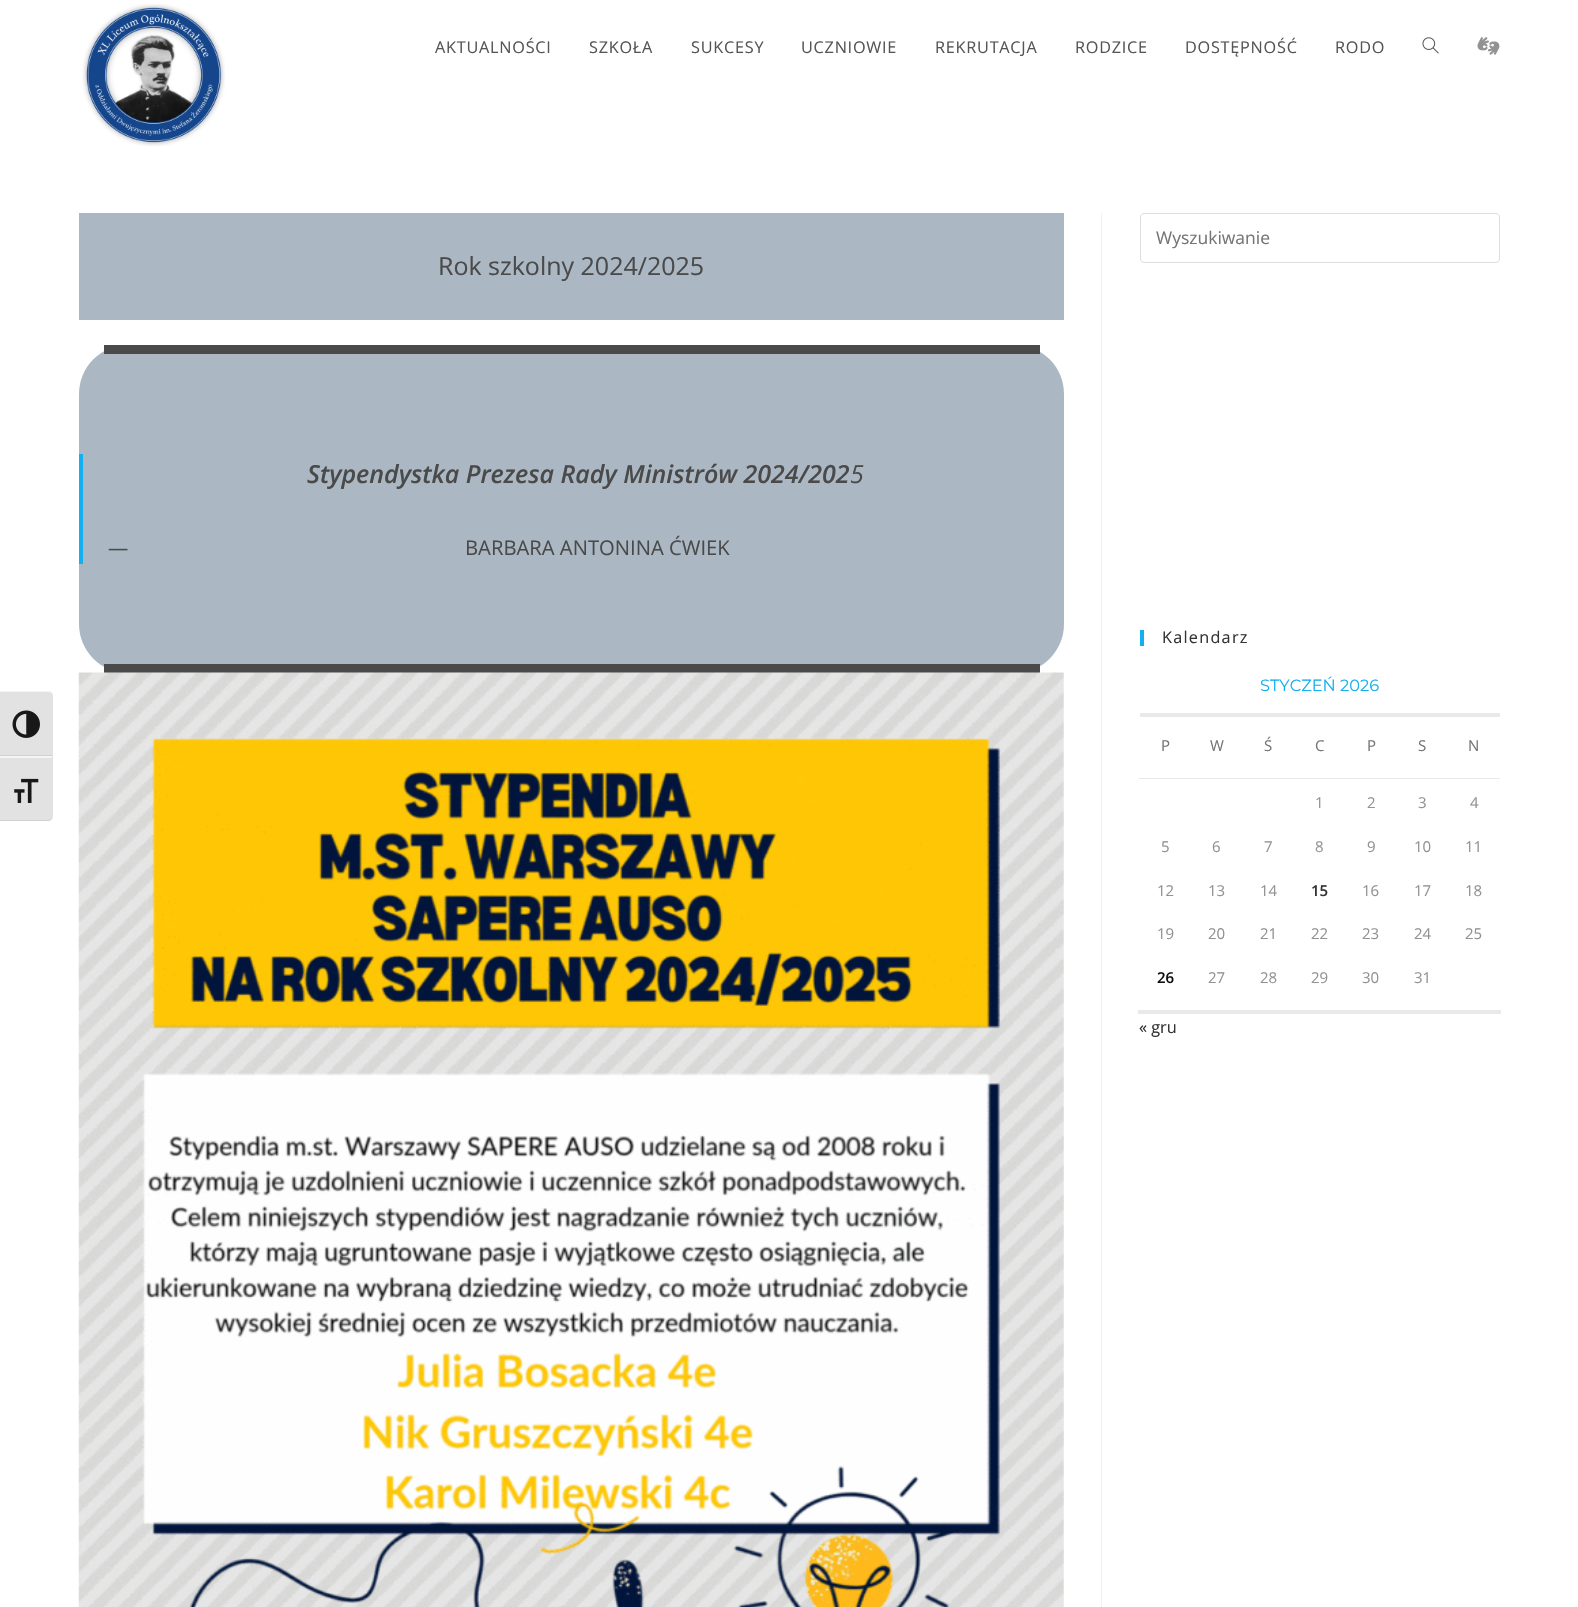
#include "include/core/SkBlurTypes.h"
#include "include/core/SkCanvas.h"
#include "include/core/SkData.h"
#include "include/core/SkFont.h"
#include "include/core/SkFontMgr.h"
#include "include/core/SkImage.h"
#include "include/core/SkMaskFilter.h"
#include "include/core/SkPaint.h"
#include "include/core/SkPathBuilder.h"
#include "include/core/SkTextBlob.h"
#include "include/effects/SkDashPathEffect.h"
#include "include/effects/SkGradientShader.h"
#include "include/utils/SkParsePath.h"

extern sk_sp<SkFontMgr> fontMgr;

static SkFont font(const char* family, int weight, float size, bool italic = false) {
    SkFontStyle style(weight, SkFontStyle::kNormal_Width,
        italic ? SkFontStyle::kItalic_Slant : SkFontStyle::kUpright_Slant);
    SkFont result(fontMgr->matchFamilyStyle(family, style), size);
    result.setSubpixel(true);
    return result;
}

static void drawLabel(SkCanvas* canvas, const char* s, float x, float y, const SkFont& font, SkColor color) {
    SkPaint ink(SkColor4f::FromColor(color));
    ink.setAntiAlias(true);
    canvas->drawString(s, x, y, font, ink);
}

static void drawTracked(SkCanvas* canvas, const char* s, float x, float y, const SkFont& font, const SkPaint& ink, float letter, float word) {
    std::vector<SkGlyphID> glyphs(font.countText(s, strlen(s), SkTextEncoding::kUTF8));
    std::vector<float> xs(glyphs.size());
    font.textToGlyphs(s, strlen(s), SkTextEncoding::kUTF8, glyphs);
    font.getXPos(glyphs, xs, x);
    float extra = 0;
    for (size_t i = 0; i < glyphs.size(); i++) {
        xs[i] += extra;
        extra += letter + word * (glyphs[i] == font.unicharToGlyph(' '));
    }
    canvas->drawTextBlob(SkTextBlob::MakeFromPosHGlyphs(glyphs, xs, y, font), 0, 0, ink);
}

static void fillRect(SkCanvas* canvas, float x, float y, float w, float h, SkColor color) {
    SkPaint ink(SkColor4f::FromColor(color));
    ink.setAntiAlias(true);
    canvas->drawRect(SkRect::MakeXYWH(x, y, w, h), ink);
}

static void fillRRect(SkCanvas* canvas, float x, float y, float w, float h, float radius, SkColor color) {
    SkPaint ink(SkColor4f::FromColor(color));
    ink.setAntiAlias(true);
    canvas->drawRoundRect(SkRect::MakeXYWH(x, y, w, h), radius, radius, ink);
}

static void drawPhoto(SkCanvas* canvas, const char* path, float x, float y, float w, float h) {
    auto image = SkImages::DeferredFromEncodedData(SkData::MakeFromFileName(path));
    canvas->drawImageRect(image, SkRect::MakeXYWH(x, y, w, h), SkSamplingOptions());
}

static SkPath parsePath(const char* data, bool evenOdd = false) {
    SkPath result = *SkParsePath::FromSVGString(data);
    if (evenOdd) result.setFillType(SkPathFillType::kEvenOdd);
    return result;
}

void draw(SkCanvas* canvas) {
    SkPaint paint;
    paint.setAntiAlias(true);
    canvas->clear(0xFFFFFFFF);
    paint.setColor(0xFFE2E2E2);
    canvas->drawPath(parsePath("M0 691H48C51 691 53 693 53 696V756H0Z"), paint);
    paint.setColor(0xFFF5F5F5);
    canvas->drawPath(parsePath("M0 692H48C50 692 52 694 52 696C52 694 51 692 49 691H0Z"), paint);
    fillRect(canvas, 0, 755, 52, 1, 0xFFD2D2D2);
    drawPhoto(canvas, "assets/img1.png", 12, 710, 28, 28);
    paint.setColor(0xFFE2E2E2);
    canvas->drawPath(parsePath("M0 756H53V816C53 819 51 821 48 821H0Z"), paint);
    fillRect(canvas, 0, 756, 52, 2, 0xFFF5F5F5);
    paint.setColor(0xFFD2D2D2);
    canvas->drawPath(parsePath("M48 821C50 821 52 819 52 816C52 818 50 820 48 820H0V821Z"), paint);
    drawPhoto(canvas, "assets/img2.png", 14, 778, 25, 25);
    drawPhoto(canvas, "assets/img3.png", 82, 4, 143, 142);
    SkFont font1 = font("Open Sans", 400, 16.25f);
    paint.setColor(0xFF555555);
    drawTracked(canvas, "AKTUALNOŚCI", 435, 53, font1, paint, 0.75f, 0);
    drawTracked(canvas, "SZKOŁA", 589, 53, font1, paint, 0.75f, 0);
    drawTracked(canvas, "SUKCESY", 691, 53, font1, paint, 0.75f, 0);
    drawTracked(canvas, "UCZNIOWIE", 801, 53, font1, paint, 0.75f, 0);
    drawTracked(canvas, "REKRUTACJA", 935, 53, font1, paint, 0.75f, 0);
    drawTracked(canvas, "RODZICE", 1075, 53, font1, paint, 0.75f, 0);
    drawTracked(canvas, "DOSTĘPNOŚĆ", 1185, 53, font1, paint, 0.75f, 0);
    drawTracked(canvas, "RODO", 1335, 53, font1, paint, 0.75f, 0);
    drawPhoto(canvas, "assets/img4.png", 1422, 37, 17, 17);
    drawPhoto(canvas, "assets/img5.png", 1477, 37, 23, 18);
    fillRect(canvas, 1101, 213, 1, 1394, 0xFFF1F1F1);
    fillRect(canvas, 79, 213, 985, 107, 0xFFABB8C3);
    SkFont font2 = font("Open Sans", 400, 25);
    drawLabel(canvas, "Rok szkolny 2024/2025", 438, 275, font2, 0xFF4A4A4A);
    fillRRect(canvas, 79, 345, 985, 328, 49, 0xFFABB8C3);
    fillRect(canvas, 104, 345, 936, 9, 0xFF4A4A4A);
    fillRect(canvas, 104, 664, 936, 9, 0xFF4A4A4A);
    fillRect(canvas, 79, 454, 4, 110, 0xFF13AFF0);
    SkFont font3 = font("Open Sans", 600, 25, true);
    drawLabel(canvas, "Stypendystka Prezesa Rady Ministrów 2024/202", 307, 483, font3, 0xFF4A4A4A);
    SkFont font4 = font("Open Sans", 400, 25, true);
    drawLabel(canvas, "5", 850, 483, font4, 0xFF4A4A4A);
    SkFont font5 = font("Open Sans", 400, 20.25f);
    drawLabel(canvas, "—", 108, 555, font5, 0xFF4A4A4A);
    drawLabel(canvas, "BARBARA ANTONINA ĆWIEK", 465, 555, font5, 0xFF4A4A4A);
    drawPhoto(canvas, "assets/img6.png", 78, 672, 986, 935);
    paint.setStroke(true);
    paint.setStrokeWidth(1);
    paint.setColor(0xFFDDDDDD);
    canvas->drawRoundRect(SkRect::MakeXYWH(1140.5f, 213.5f, 359, 49), 3.5f, 3.5f, paint);
    SkFont font6 = font("Open Sans", 400, 17.5f);
    drawLabel(canvas, "Wyszukiwanie", 1156, 244, font6, 0xFF757575);
    fillRect(canvas, 1140, 630, 4, 16, 0xFF13AFF0);
    paint.setStroke(false);
    paint.setColor(0xFF333333);
    drawTracked(canvas, "Kalendarz", 1162, 643, font1, paint, 1.25f, 0);
    fillRect(canvas, 1140, 713, 360, 4, 0xFFE9E9E9);
    SkFont font7 = font("Montserrat", 400, 16.25f);
    drawLabel(canvas, "STYCZEŃ 2026", 1260, 691, font7, 0xFF13AFF0);
    SkFont font8 = font("Open Sans", 400, 15);
    drawLabel(canvas, "P", 1161, 751, font8, 0xFF757575);
    drawLabel(canvas, "W", 1210, 751, font8, 0xFF757575);
    drawLabel(canvas, "Ś", 1264, 751, font8, 0xFF757575);
    drawLabel(canvas, "C", 1315, 751, font8, 0xFF757575);
    drawLabel(canvas, "P", 1367, 751, font8, 0xFF757575);
    drawLabel(canvas, "S", 1418, 751, font8, 0xFF757575);
    fillRect(canvas, 1139, 778, 361, 1, 0xFFE9E9E9);
    drawLabel(canvas, "N", 1468, 751, font8, 0xFF757575);
    fillRect(canvas, 1138, 1010, 363, 4, 0xFFE9E9E9);
    drawLabel(canvas, "1", 1315, 808, font8, 0xFF929292);
    drawLabel(canvas, "2", 1367, 808, font8, 0xFF929292);
    drawLabel(canvas, "3", 1418, 808, font8, 0xFF929292);
    drawLabel(canvas, "4", 1470, 808, font8, 0xFF929292);
    drawLabel(canvas, "5", 1161, 852, font8, 0xFF929292);
    drawLabel(canvas, "6", 1212, 852, font8, 0xFF929292);
    drawLabel(canvas, "7", 1264, 852, font8, 0xFF929292);
    drawLabel(canvas, "8", 1315, 852, font8, 0xFF929292);
    drawLabel(canvas, "9", 1367, 852, font8, 0xFF929292);
    drawLabel(canvas, "10", 1414, 852, font8, 0xFF929292);
    drawLabel(canvas, "11", 1465, 852, font8, 0xFF929292);
    drawLabel(canvas, "12", 1157, 896, font8, 0xFF929292);
    drawLabel(canvas, "13", 1208, 896, font8, 0xFF929292);
    drawLabel(canvas, "14", 1260, 896, font8, 0xFF929292);
    SkFont font9 = font("Open Sans", 600, 15);
    drawLabel(canvas, "15", 1311, 896, font9, 0xFF333333);
    drawLabel(canvas, "16", 1362, 896, font8, 0xFF929292);
    drawLabel(canvas, "17", 1414, 896, font8, 0xFF929292);
    drawLabel(canvas, "18", 1465, 896, font8, 0xFF929292);
    drawLabel(canvas, "19", 1157, 939, font8, 0xFF929292);
    drawLabel(canvas, "20", 1208, 939, font8, 0xFF929292);
    drawLabel(canvas, "21", 1260, 939, font8, 0xFF929292);
    drawLabel(canvas, "22", 1311, 939, font8, 0xFF929292);
    drawLabel(canvas, "23", 1362, 939, font8, 0xFF929292);
    drawLabel(canvas, "24", 1414, 939, font8, 0xFF929292);
    drawLabel(canvas, "25", 1465, 939, font8, 0xFF929292);
    drawLabel(canvas, "26", 1157, 983, font9, 0xFF111111);
    drawLabel(canvas, "27", 1208, 983, font8, 0xFF929292);
    drawLabel(canvas, "28", 1260, 983, font8, 0xFF929292);
    drawLabel(canvas, "29", 1311, 983, font8, 0xFF929292);
    drawLabel(canvas, "30", 1362, 983, font8, 0xFF929292);
    drawLabel(canvas, "31", 1414, 983, font8, 0xFF929292);
    drawLabel(canvas, "« gru", 1139, 1033, font1, 0xFF333333);
}
